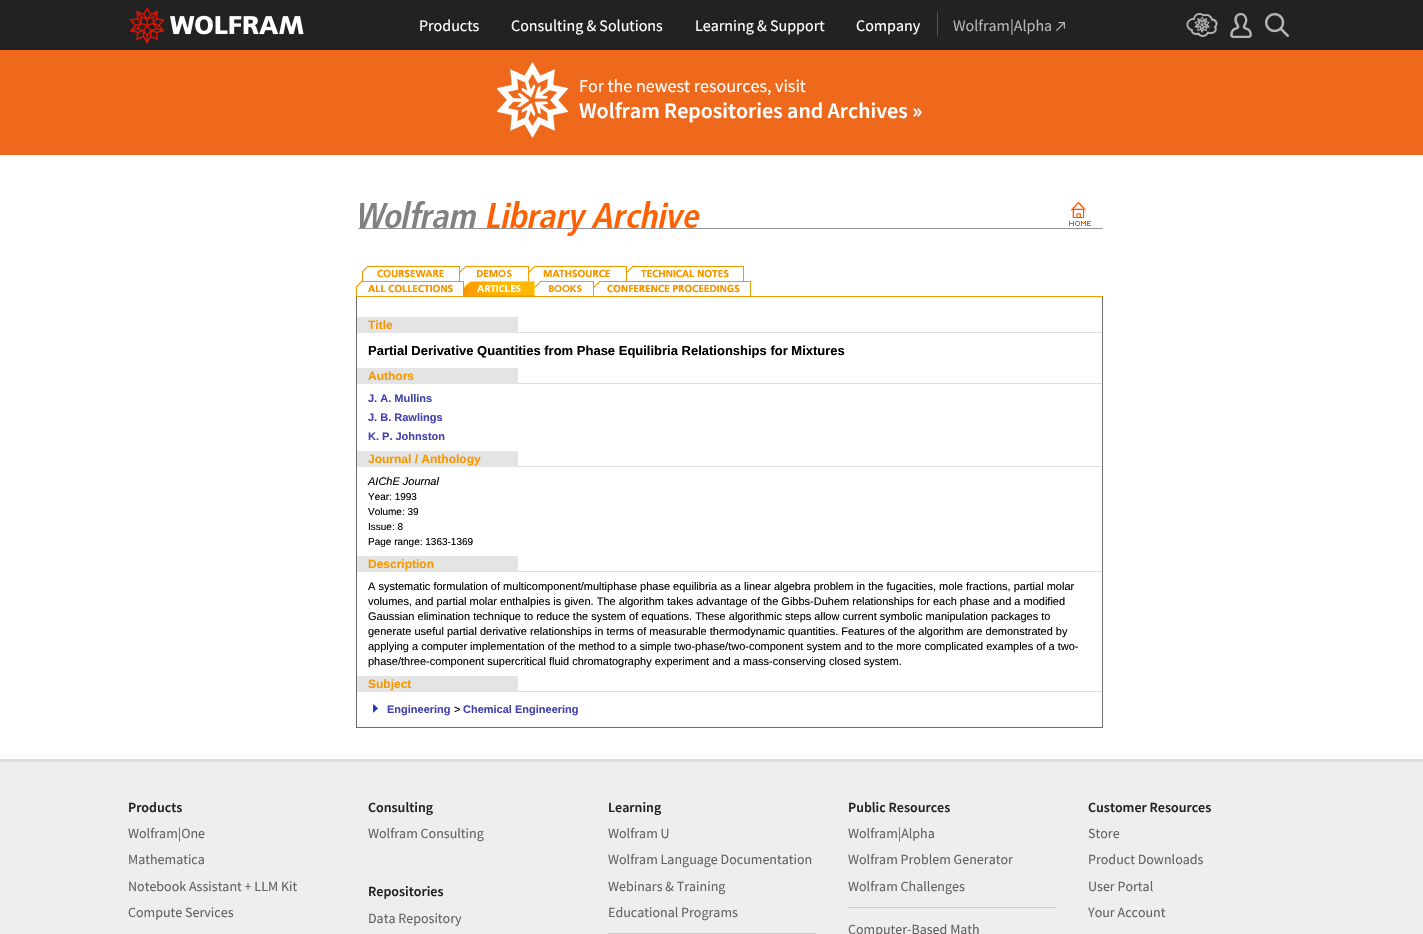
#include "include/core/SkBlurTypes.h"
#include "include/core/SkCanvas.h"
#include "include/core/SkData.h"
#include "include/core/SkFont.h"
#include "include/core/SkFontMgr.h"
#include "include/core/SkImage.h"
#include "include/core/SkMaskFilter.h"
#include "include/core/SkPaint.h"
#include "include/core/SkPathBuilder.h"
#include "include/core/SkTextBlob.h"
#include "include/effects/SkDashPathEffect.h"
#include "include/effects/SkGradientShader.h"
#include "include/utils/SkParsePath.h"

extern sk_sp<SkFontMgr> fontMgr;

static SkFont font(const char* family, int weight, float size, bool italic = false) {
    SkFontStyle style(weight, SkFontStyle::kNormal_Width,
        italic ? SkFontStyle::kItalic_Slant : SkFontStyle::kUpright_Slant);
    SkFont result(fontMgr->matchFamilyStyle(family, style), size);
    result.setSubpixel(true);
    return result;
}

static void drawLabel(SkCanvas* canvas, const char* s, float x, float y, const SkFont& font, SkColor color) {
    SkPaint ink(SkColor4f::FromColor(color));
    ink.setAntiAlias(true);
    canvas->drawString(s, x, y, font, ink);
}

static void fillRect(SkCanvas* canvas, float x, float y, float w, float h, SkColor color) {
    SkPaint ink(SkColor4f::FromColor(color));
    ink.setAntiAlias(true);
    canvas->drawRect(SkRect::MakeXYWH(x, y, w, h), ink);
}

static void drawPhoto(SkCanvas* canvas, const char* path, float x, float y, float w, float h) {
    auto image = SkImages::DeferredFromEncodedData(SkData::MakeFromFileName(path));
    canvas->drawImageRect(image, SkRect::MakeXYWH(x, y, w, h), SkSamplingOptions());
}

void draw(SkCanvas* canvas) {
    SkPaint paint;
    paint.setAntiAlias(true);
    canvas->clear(0xFFFFFFFF);
    fillRect(canvas, 0, 0, 1423, 50, 0xFF222222);
    drawPhoto(canvas, "assets/img1.png", 129, 7, 175, 37);
    SkFont font1 = font("Source Sans Pro", 400, 16);
    drawLabel(canvas, "Products", 419, 31, font1, 0xFFFFFFFF);
    drawLabel(canvas, "Consulting & Solutions", 511, 31, font1, 0xFFFFFFFF);
    drawLabel(canvas, "Learning & Support", 695, 31, font1, 0xFFFFFFFF);
    drawLabel(canvas, "Company", 856, 31, font1, 0xFFFFFFFF);
    fillRect(canvas, 937, 12, 1, 24, 0xFF525252);
    drawLabel(canvas, "Wolfram|Alpha", 953, 31, font1, 0xFFB5B5B5);
    drawPhoto(canvas, "assets/img2.png", 1056, 22, 9, 9);
    drawPhoto(canvas, "assets/img3.png", 1186, 13, 32, 24);
    drawPhoto(canvas, "assets/img4.png", 1230, 13, 22, 25);
    drawPhoto(canvas, "assets/img5.png", 1265, 13, 24, 24);
    fillRect(canvas, 0, 50, 1423, 105, 0xFFEF691D);
    drawPhoto(canvas, "assets/img6.png", 497, 62, 72, 76);
    SkFont font2 = font("Source Sans Pro", 400, 18);
    drawLabel(canvas, "For the newest resources, visit", 579, 92, font2, 0xFFFFFFFF);
    SkFont font3 = font("Source Sans Pro", 600, 22);
    drawLabel(canvas, "Wolfram Repositories and Archives »", 579, 118, font3, 0xFFFFFFFF);
    drawPhoto(canvas, "assets/img7.png", 358, 201, 745, 35);
    drawPhoto(canvas, "assets/img8.png", 362, 266, 98, 15);
    drawPhoto(canvas, "assets/img9.png", 460, 266, 69, 15);
    drawPhoto(canvas, "assets/img10.png", 529, 266, 98, 15);
    drawPhoto(canvas, "assets/img11.png", 627, 266, 117, 15);
    drawPhoto(canvas, "assets/img12.png", 356, 281, 108, 16);
    drawPhoto(canvas, "assets/img13.png", 464, 281, 71, 16);
    drawPhoto(canvas, "assets/img14.png", 535, 281, 59, 16);
    drawPhoto(canvas, "assets/img15.png", 594, 281, 157, 16);
    fillRect(canvas, 751, 296, 352, 1, 0xFFF59800);
    fillRect(canvas, 356, 297, 1, 431, 0xFF6F6F6F);
    fillRect(canvas, 357, 317, 161, 16, 0xFFE4E4E4);
    SkFont font4 = font("Liberation Sans", 700, 12);
    drawLabel(canvas, "Title", 368, 329, font4, 0xFFF59800);
    fillRect(canvas, 518, 332, 584, 1, 0xFFDEDEDE);
    SkFont font5 = font("Liberation Sans", 700, 13);
    drawLabel(canvas, "Partial Derivative Quantities from Phase Equilibria Relationships for Mixtures", 368, 355, font5, 0xFF000000);
    fillRect(canvas, 357, 368, 161, 16, 0xFFE4E4E4);
    drawLabel(canvas, "Authors", 368, 380, font4, 0xFFF59800);
    fillRect(canvas, 518, 383, 584, 1, 0xFFDEDEDE);
    SkFont font6 = font("Liberation Sans", 700, 11);
    drawLabel(canvas, "J. A. Mullins", 368, 402, font6, 0xFF4242AD);
    drawLabel(canvas, "J. B. Rawlings", 368, 421, font6, 0xFF4242AD);
    drawLabel(canvas, "K. P. Johnston", 368, 440, font6, 0xFF4242AD);
    fillRect(canvas, 357, 451, 161, 16, 0xFFE4E4E4);
    drawLabel(canvas, "Journal / Anthology", 368, 463, font4, 0xFFF59800);
    fillRect(canvas, 518, 466, 584, 1, 0xFFDEDEDE);
    SkFont font7 = font("Liberation Sans", 400, 11, true);
    drawLabel(canvas, "AIChE Journal", 368, 485, font7, 0xFF000000);
    SkFont font8 = font("Liberation Sans", 400, 10);
    drawLabel(canvas, "Year: 1993", 368, 500, font8, 0xFF000000);
    drawLabel(canvas, "Volume: 39", 368, 515, font8, 0xFF000000);
    drawLabel(canvas, "Issue: 8", 368, 530, font8, 0xFF000000);
    drawLabel(canvas, "Page range: 1363-1369", 368, 545, font8, 0xFF000000);
    fillRect(canvas, 357, 556, 161, 16, 0xFFE4E4E4);
    drawLabel(canvas, "Description", 368, 568, font4, 0xFFF59800);
    fillRect(canvas, 518, 571, 584, 1, 0xFFDEDEDE);
    SkFont font9 = font("Liberation Sans", 400, 11);
    drawLabel(canvas, "A systematic formulation of multicomponent/multiphase phase equilibria as a linear algebra problem in the fugacities, mole fractions, partial molar", 368, 590, font9, 0xFF000000);
    drawLabel(canvas, "volumes, and partial molar enthalpies is given. The algorithm takes advantage of the Gibbs-Duhem relationships for each phase and a modified", 368, 605, font9, 0xFF000000);
    drawLabel(canvas, "Gaussian elimination technique to reduce the system of equations. These algorithmic steps allow current symbolic manipulation packages to", 368, 620, font9, 0xFF000000);
    drawLabel(canvas, "generate useful partial derivative relationships in terms of measurable thermodynamic quantities. Features of the algorithm are demonstrated by", 368, 635, font9, 0xFF000000);
    drawLabel(canvas, "applying a computer implementation of the method to a simple two-phase/two-component system and to the more complicated examples of a two-", 368, 650, font9, 0xFF000000);
    drawLabel(canvas, "phase/three-component supercritical fluid chromatography experiment and a mass-conserving closed system.", 368, 665, font9, 0xFF000000);
    fillRect(canvas, 357, 676, 161, 16, 0xFFE4E4E4);
    drawLabel(canvas, "Subject", 368, 688, font4, 0xFFF59800);
    fillRect(canvas, 518, 691, 584, 1, 0xFFDEDEDE);
    drawPhoto(canvas, "assets/img16.png", 373, 704, 5, 9);
    drawLabel(canvas, "Engineering", 387, 713, font6, 0xFF4242AD);
    drawLabel(canvas, ">", 454, 713, font9, 0xFF000000);
    drawLabel(canvas, "Chemical Engineering", 463, 713, font6, 0xFF4242AD);
    fillRect(canvas, 1102, 297, 1, 430, 0xFF6F6F6F);
    fillRect(canvas, 357, 727, 746, 1, 0xFF6F6F6F);
    fillRect(canvas, 0, 762, 1423, 172, 0xFFEEEEEE);
    fillRect(canvas, 0, 759, 1423, 3, 0xFFDDDDDD);
    SkFont font10 = font("Source Sans Pro", 600, 14);
    drawLabel(canvas, "Products", 128, 812, font10, 0xFF222222);
    SkFont font11 = font("Source Sans Pro", 400, 14);
    drawLabel(canvas, "Wolfram|One", 128, 838, font11, 0xFF636363);
    drawLabel(canvas, "Mathematica", 128, 864, font11, 0xFF636363);
    drawLabel(canvas, "Notebook Assistant + LLM Kit", 128, 891, font11, 0xFF636363);
    drawLabel(canvas, "Compute Services", 128, 917, font11, 0xFF636363);
    drawLabel(canvas, "Consulting", 368, 812, font10, 0xFF222222);
    drawLabel(canvas, "Wolfram Consulting", 368, 838, font11, 0xFF636363);
    drawLabel(canvas, "Repositories", 368, 896, font10, 0xFF222222);
    drawLabel(canvas, "Data Repository", 368, 923, font11, 0xFF636363);
    drawLabel(canvas, "Learning", 608, 812, font10, 0xFF222222);
    drawLabel(canvas, "Wolfram U", 608, 838, font11, 0xFF636363);
    drawLabel(canvas, "Wolfram Language Documentation", 608, 864, font11, 0xFF636363);
    drawLabel(canvas, "Webinars & Training", 608, 891, font11, 0xFF636363);
    drawLabel(canvas, "Educational Programs", 608, 917, font11, 0xFF636363);
    fillRect(canvas, 608, 933, 208, 1, 0xFFCCCCCC);
    drawLabel(canvas, "Public Resources", 848, 812, font10, 0xFF222222);
    drawLabel(canvas, "Wolfram|Alpha", 848, 838, font11, 0xFF636363);
    drawLabel(canvas, "Wolfram Problem Generator", 848, 864, font11, 0xFF636363);
    drawLabel(canvas, "Wolfram Challenges", 848, 891, font11, 0xFF636363);
    fillRect(canvas, 848, 907, 208, 1, 0xFFCCCCCC);
    drawLabel(canvas, "Computer-Based Math", 848, 934, font11, 0xFF636363);
    drawLabel(canvas, "Customer Resources", 1088, 812, font10, 0xFF222222);
    drawLabel(canvas, "Store", 1088, 838, font11, 0xFF636363);
    drawLabel(canvas, "Product Downloads", 1088, 864, font11, 0xFF636363);
    drawLabel(canvas, "User Portal", 1088, 891, font11, 0xFF636363);
    drawLabel(canvas, "Your Account", 1088, 917, font11, 0xFF636363);
}
